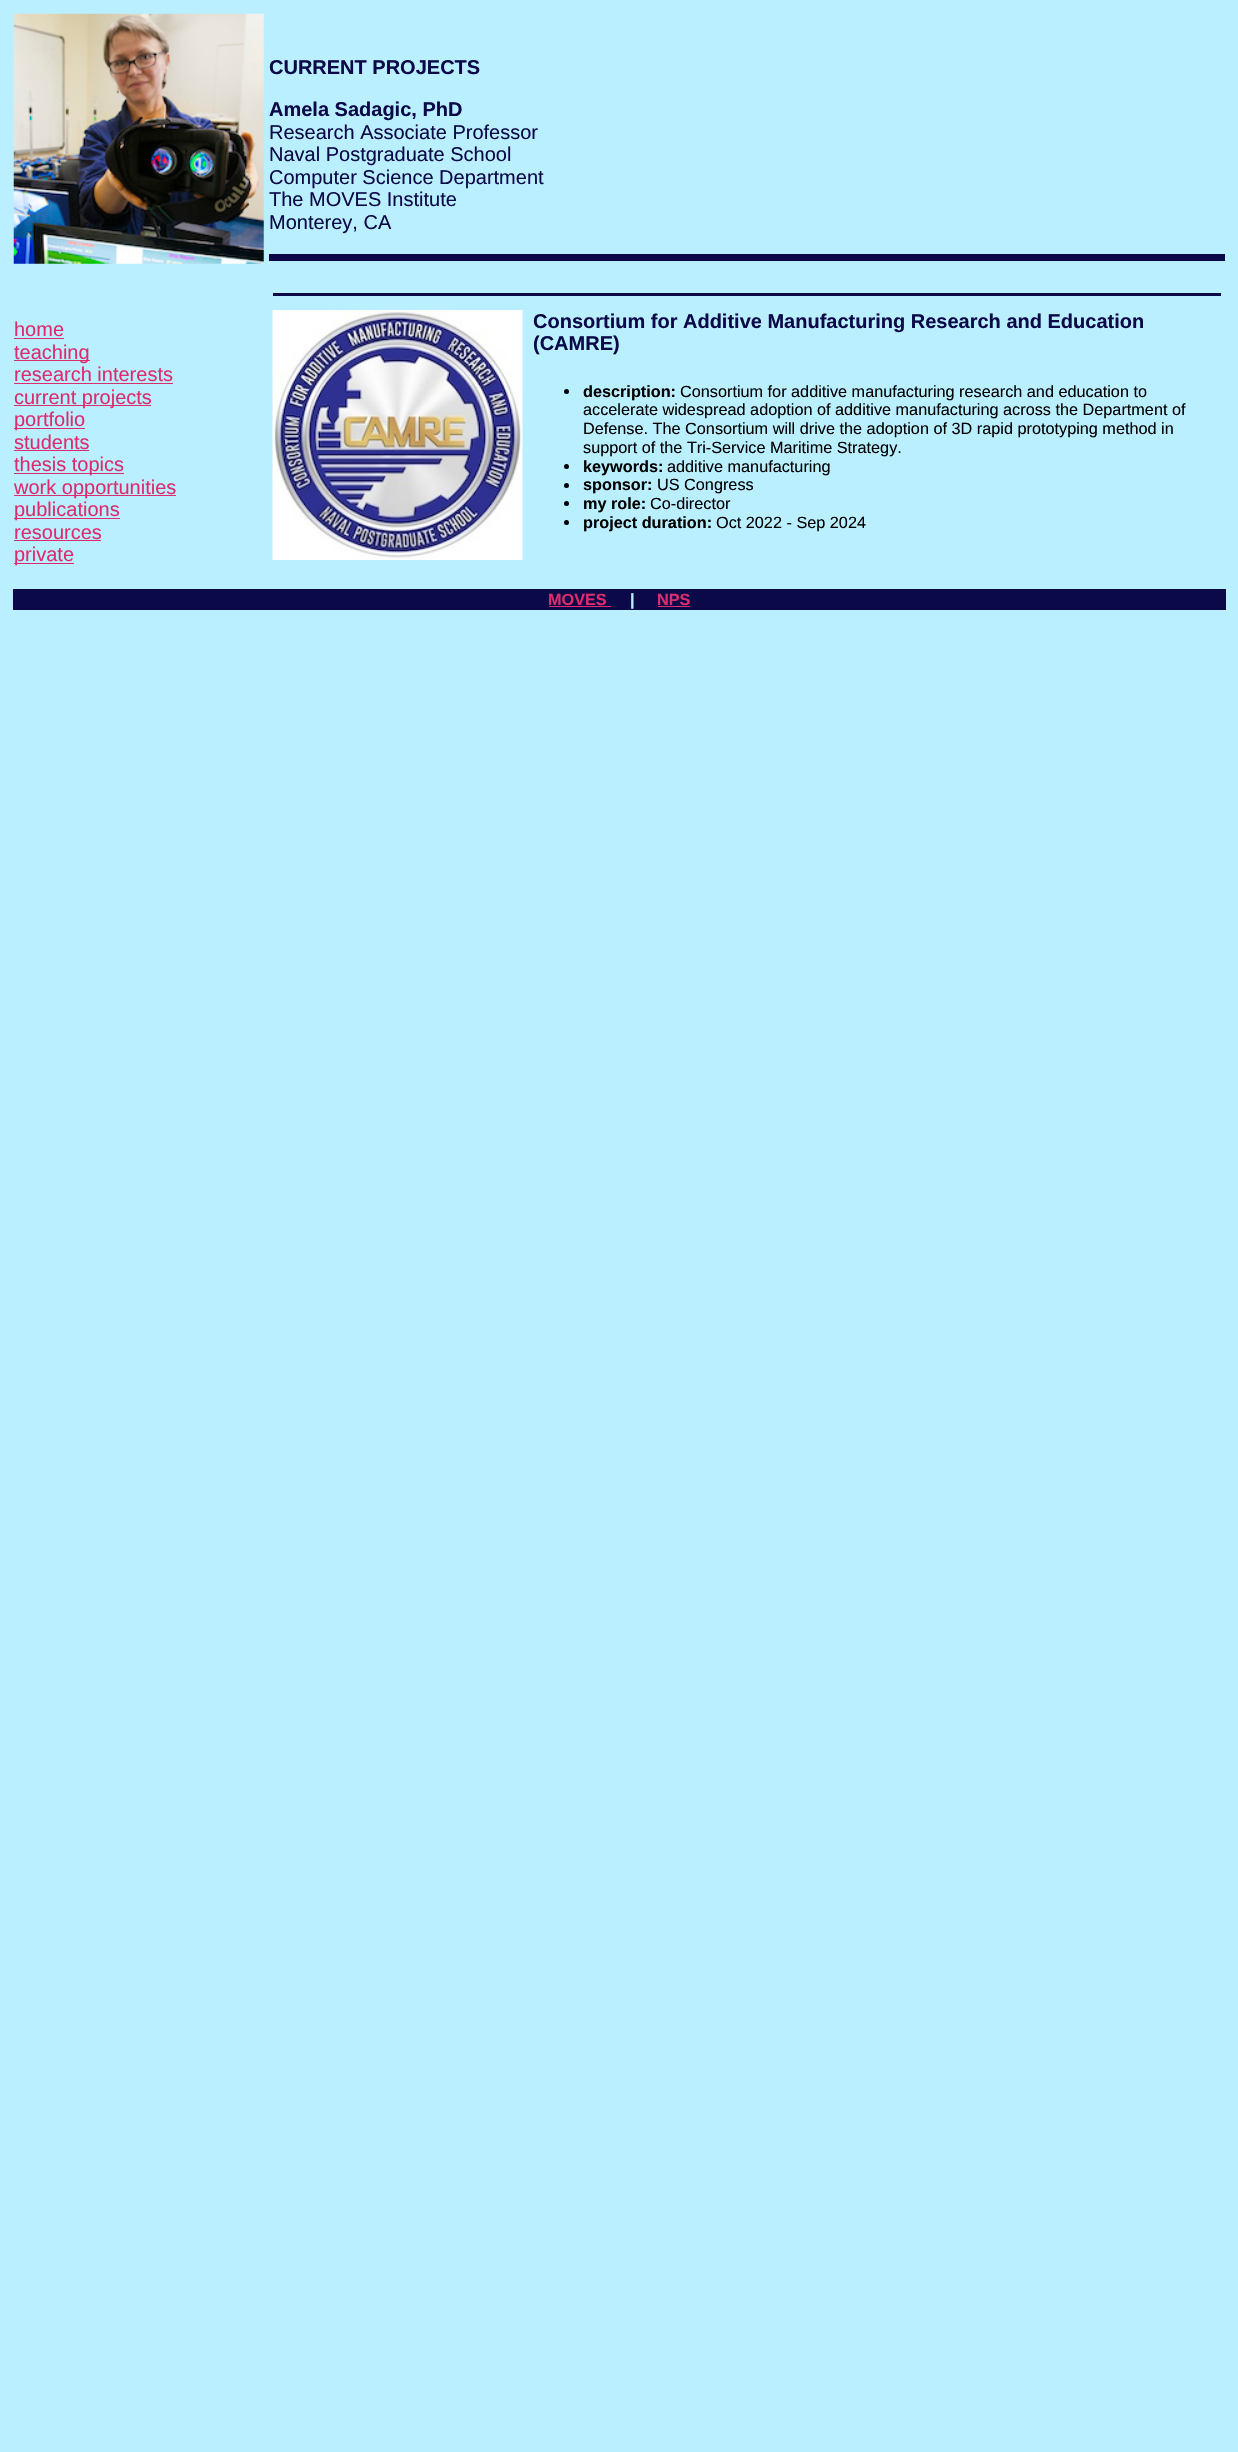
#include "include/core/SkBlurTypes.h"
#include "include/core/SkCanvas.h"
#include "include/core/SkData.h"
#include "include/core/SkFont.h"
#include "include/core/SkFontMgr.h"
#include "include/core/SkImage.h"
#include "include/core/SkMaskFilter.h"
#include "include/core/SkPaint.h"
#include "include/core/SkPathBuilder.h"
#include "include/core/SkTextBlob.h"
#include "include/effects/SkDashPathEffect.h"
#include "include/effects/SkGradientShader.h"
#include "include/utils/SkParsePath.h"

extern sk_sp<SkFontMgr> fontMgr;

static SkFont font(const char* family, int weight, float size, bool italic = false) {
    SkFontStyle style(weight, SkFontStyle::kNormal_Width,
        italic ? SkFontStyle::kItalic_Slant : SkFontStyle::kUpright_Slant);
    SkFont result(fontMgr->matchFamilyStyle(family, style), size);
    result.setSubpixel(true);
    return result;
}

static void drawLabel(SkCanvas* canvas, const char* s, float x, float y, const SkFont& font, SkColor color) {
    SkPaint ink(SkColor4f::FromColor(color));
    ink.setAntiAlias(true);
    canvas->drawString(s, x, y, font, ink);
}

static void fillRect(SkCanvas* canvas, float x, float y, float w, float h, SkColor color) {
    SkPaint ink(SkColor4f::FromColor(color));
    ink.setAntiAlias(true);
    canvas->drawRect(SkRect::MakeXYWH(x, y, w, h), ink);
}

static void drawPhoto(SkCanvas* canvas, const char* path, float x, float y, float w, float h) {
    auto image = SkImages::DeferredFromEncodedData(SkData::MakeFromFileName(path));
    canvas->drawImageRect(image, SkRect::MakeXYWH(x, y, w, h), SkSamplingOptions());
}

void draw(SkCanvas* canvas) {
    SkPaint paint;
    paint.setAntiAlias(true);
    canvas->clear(0xFFBAEFFF);
    drawPhoto(canvas, "assets/img1.png", 13, 13, 251, 251);
    SkFont font1 = font("Liberation Sans", 700, 20);
    drawLabel(canvas, "CURRENT PROJECTS", 269, 74, font1, 0xFF0B0948);
    drawLabel(canvas, "Amela Sadagic, PhD", 269, 116, font1, 0xFF0B0948);
    SkFont font2 = font("Liberation Sans", 400, 20);
    drawLabel(canvas, "Research Associate Professor", 269, 139, font2, 0xFF0B0948);
    drawLabel(canvas, "Naval Postgraduate School", 269, 161, font2, 0xFF0B0948);
    drawLabel(canvas, "Computer Science Department", 269, 184, font2, 0xFF0B0948);
    drawLabel(canvas, "The MOVES Institute", 269, 206, font2, 0xFF0B0948);
    drawLabel(canvas, "Monterey, CA", 269, 229, font2, 0xFF0B0948);
    fillRect(canvas, 269, 254, 956, 7, 0xFF0B0948);
    drawLabel(canvas, "home", 14, 336, font2, 0xFFDD2C6D);
    fillRect(canvas, 14, 338, 50, 1, 0xFFDD2C6D);
    fillRect(canvas, 14, 360, 76, 1, 0xFFDD2C6D);
    drawLabel(canvas, "teaching", 14, 359, font2, 0xFFDD2C6D);
    drawLabel(canvas, "research interests", 14, 381, font2, 0xFFDD2C6D);
    fillRect(canvas, 14, 383, 159, 1, 0xFFDD2C6D);
    fillRect(canvas, 14, 405, 137, 1, 0xFFDD2C6D);
    drawLabel(canvas, "current projects", 14, 404, font2, 0xFFDD2C6D);
    fillRect(canvas, 14, 428, 71, 1, 0xFFDD2C6D);
    drawLabel(canvas, "portfolio", 14, 426, font2, 0xFFDD2C6D);
    drawLabel(canvas, "students", 14, 449, font2, 0xFFDD2C6D);
    fillRect(canvas, 14, 450, 75, 1, 0xFFDD2C6D);
    fillRect(canvas, 14, 473, 110, 1, 0xFFDD2C6D);
    drawLabel(canvas, "thesis topics", 14, 471, font2, 0xFFDD2C6D);
    fillRect(canvas, 14, 495, 162, 1, 0xFFDD2C6D);
    drawLabel(canvas, "work opportunities", 14, 494, font2, 0xFFDD2C6D);
    fillRect(canvas, 14, 518, 106, 1, 0xFFDD2C6D);
    drawLabel(canvas, "publications", 14, 516, font2, 0xFFDD2C6D);
    drawLabel(canvas, "resources", 14, 539, font2, 0xFFDD2C6D);
    fillRect(canvas, 14, 540, 87, 1, 0xFFDD2C6D);
    fillRect(canvas, 14, 563, 60, 1, 0xFFDD2C6D);
    drawLabel(canvas, "private", 14, 561, font2, 0xFFDD2C6D);
    fillRect(canvas, 273, 293, 948, 3, 0xFF0B0948);
    drawPhoto(canvas, "assets/img2.png", 272, 310, 251, 250);
    drawLabel(canvas, "Consortium for Additive Manufacturing Research and Education", 533, 328, font1, 0xFF0B0948);
    drawLabel(canvas, "(CAMRE)", 533, 350, font1, 0xFF0B0948);
    paint.setColor(0xFF000000);
    canvas->drawCircle(566.5f, 391.5f, 2.5f, paint);
    SkFont font3 = font("Liberation Sans", 700, 16.25f);
    drawLabel(canvas, "description:", 583, 397, font3, 0xFF000000);
    SkFont font4 = font("Liberation Sans", 400, 16.25f);
    drawLabel(canvas, "Consortium for additive manufacturing research and education to", 680, 397, font4, 0xFF000000);
    drawLabel(canvas, "accelerate widespread adoption of additive manufacturing across the Department of", 583, 415, font4, 0xFF000000);
    drawLabel(canvas, "Defense. The Consortium will drive the adoption of 3D rapid prototyping method in", 583, 434, font4, 0xFF000000);
    drawLabel(canvas, "support of the Tri-Service Maritime Strategy.", 583, 453, font4, 0xFF000000);
    canvas->drawCircle(566.5f, 466.5f, 2.5f, paint);
    drawLabel(canvas, "keywords:", 583, 472, font3, 0xFF000000);
    drawLabel(canvas, "additive manufacturing", 667, 472, font4, 0xFF000000);
    canvas->drawCircle(566.5f, 485.5f, 2.5f, paint);
    drawLabel(canvas, "sponsor:", 583, 490, font3, 0xFF000000);
    drawLabel(canvas, "US Congress", 657, 490, font4, 0xFF000000);
    canvas->drawCircle(566.5f, 503.5f, 2.5f, paint);
    drawLabel(canvas, "my role:", 583, 509, font3, 0xFF000000);
    drawLabel(canvas, "Co-director", 650, 509, font4, 0xFF000000);
    canvas->drawCircle(566.5f, 522.5f, 2.5f, paint);
    drawLabel(canvas, "project duration:", 583, 528, font3, 0xFF000000);
    drawLabel(canvas, "Oct 2022 - Sep 2024", 716, 528, font4, 0xFF000000);
    fillRect(canvas, 13, 589, 1213, 21, 0xFF0B0948);
    drawLabel(canvas, "MOVES", 548, 605, font3, 0xFFDD2C6D);
    fillRect(canvas, 549, 606, 62, 1, 0xFFDD2C6D);
    drawLabel(canvas, "|", 630, 605, font3, 0xFFBAEFFF);
    drawLabel(canvas, "NPS", 657, 605, font3, 0xFFDD2C6D);
    fillRect(canvas, 658, 606, 32, 1, 0xFFDD2C6D);
}
